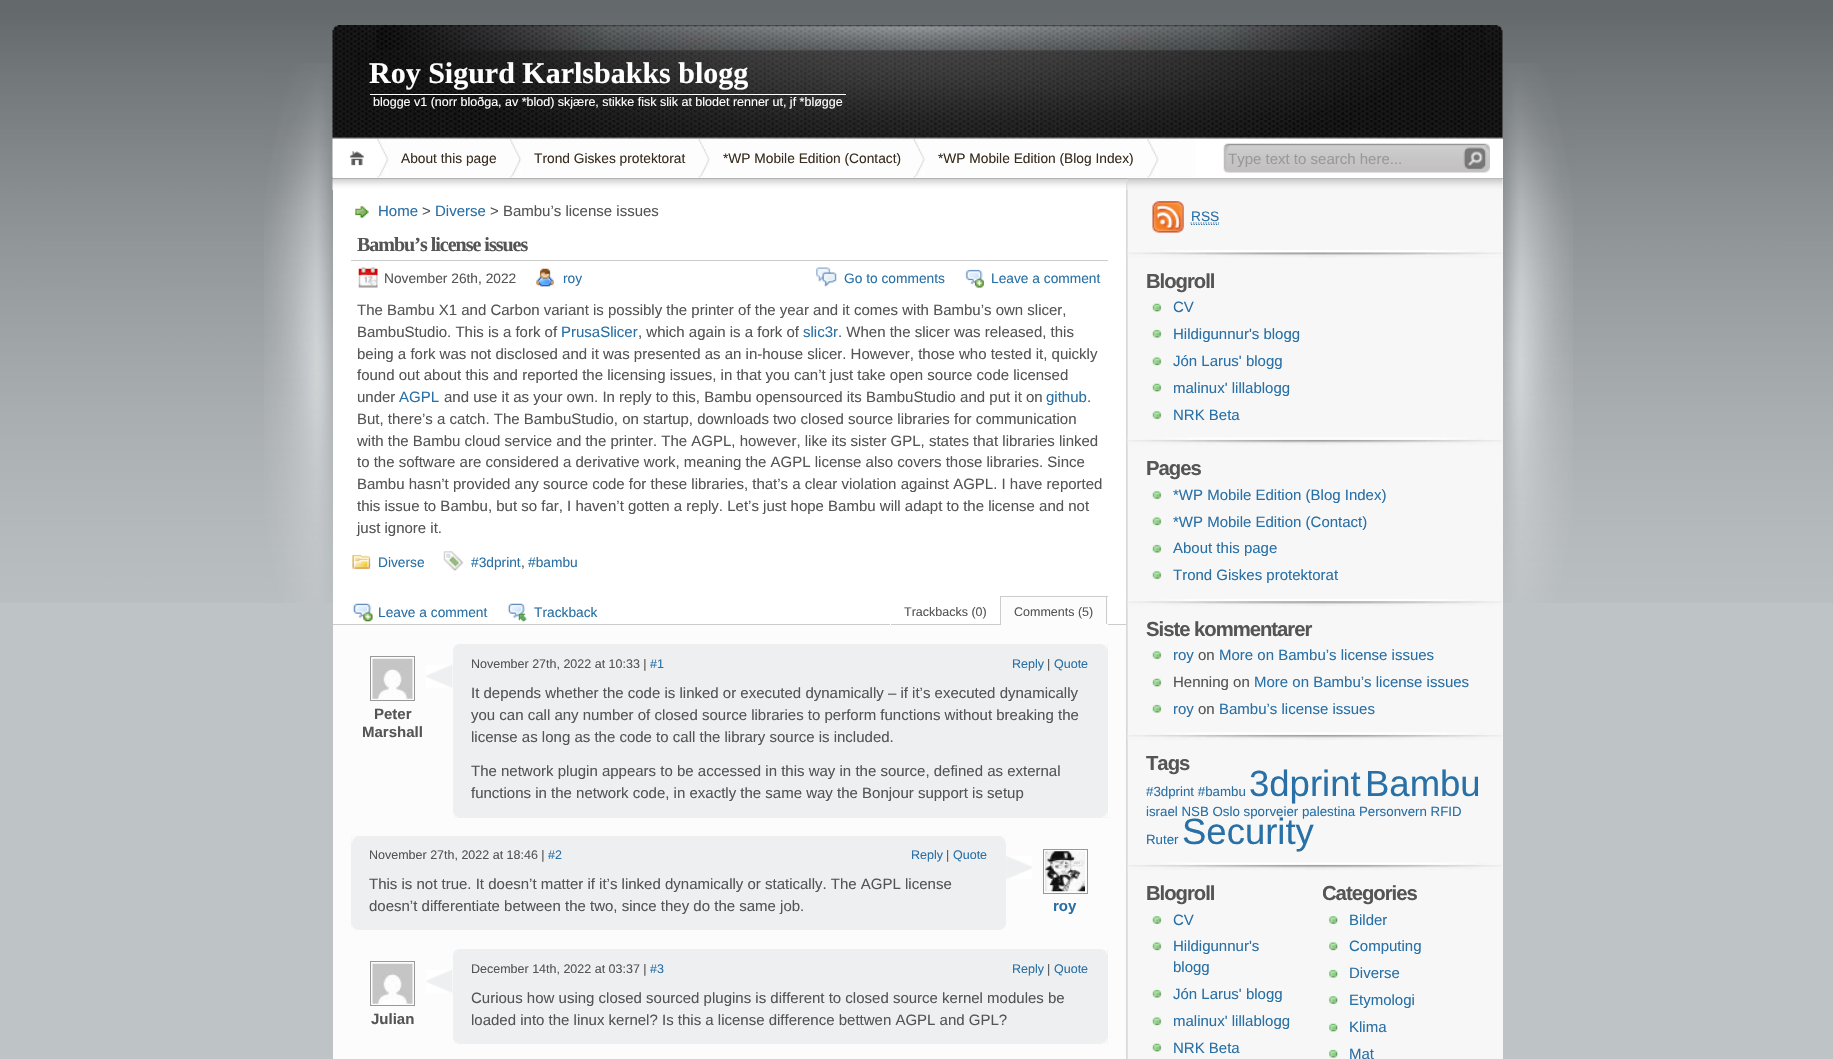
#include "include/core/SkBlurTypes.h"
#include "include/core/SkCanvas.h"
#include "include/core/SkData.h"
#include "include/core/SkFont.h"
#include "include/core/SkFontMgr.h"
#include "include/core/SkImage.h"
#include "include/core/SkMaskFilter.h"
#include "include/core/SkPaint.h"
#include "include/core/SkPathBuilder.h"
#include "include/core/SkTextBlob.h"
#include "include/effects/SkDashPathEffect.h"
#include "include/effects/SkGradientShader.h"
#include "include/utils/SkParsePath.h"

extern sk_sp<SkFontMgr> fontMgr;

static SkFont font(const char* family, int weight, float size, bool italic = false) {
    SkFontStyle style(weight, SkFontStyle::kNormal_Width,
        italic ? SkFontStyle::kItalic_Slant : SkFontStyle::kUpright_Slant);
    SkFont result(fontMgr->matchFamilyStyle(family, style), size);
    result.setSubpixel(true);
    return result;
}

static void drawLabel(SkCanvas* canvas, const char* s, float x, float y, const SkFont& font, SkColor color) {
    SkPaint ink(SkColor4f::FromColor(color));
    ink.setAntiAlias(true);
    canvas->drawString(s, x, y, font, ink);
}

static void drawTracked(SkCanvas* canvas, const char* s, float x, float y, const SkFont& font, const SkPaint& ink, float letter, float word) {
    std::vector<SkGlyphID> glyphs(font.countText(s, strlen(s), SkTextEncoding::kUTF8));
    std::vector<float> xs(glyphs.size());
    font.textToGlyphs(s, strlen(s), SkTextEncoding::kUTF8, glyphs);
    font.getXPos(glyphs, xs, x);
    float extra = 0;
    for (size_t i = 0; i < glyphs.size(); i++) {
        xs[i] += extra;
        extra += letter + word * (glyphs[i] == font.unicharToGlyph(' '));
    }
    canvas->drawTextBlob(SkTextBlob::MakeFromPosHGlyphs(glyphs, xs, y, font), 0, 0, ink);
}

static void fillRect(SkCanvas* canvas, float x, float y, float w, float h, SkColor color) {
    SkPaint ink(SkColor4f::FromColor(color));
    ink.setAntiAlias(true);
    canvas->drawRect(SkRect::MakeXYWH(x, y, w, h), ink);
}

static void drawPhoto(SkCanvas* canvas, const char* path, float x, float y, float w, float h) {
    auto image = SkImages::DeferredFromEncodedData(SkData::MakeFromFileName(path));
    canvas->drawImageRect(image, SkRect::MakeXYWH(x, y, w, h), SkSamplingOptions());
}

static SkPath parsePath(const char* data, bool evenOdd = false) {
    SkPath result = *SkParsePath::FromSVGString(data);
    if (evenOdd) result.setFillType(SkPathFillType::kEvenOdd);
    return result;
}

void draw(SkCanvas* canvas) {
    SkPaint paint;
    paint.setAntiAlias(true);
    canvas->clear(0xFFBEC3C6);
    drawPhoto(canvas, "assets/img1.png", 0, 0, 1833, 603);
    drawPhoto(canvas, "assets/img2.png", 264, 63, 1309, 540);
    drawPhoto(canvas, "assets/img3.png", 332, 25, 1171, 113);
    fillRect(canvas, 333, 139, 1170, 39, 0xFFFFFFFF);
    drawPhoto(canvas, "assets/img4.png", 332, 138, 57, 40);
    fillRect(canvas, 333, 138, 1170, 1, 0xFFA6A6A6);
    SkFont font1 = font("Liberation Serif", 700, 30);
    drawLabel(canvas, "Roy Sigurd Karlsbakks blogg", 369, 83, font1, 0xFFFFFFFF);
    fillRect(canvas, 370, 94, 476, 1, 0xFFFFFFFF);
    SkFont font2 = font("Liberation Sans", 400, 12.5f);
    drawLabel(canvas, "blogge v1 (norr bloðga, av *blod) skjære, stikke fisk slik at blodet renner ut, jf *bløgge", 373, 106, font2, 0xFFFFFFFF);
    fillRect(canvas, 333, 178, 1170, 1, 0xFFA6A6A6);
    drawPhoto(canvas, "assets/img5.png", 377, 139, 145, 39);
    SkFont font3 = font("Liberation Sans", 400, 13.75f);
    drawLabel(canvas, "About this page", 401, 163, font3, 0xFF382E1F);
    drawPhoto(canvas, "assets/img6.png", 510, 139, 200, 39);
    drawLabel(canvas, "Trond Giskes protektorat", 534, 163, font3, 0xFF382E1F);
    drawPhoto(canvas, "assets/img7.png", 698, 139, 227, 39);
    drawLabel(canvas, "*WP Mobile Edition (Contact)", 723, 163, font3, 0xFF382E1F);
    drawPhoto(canvas, "assets/img8.png", 913, 139, 246, 39);
    drawLabel(canvas, "*WP Mobile Edition (Blog Index)", 938, 163, font3, 0xFF382E1F);
    drawPhoto(canvas, "assets/img9.png", 1147, 139, 50, 39);
    drawPhoto(canvas, "assets/img10.png", 1223, 143, 267, 30);
    SkFont font4 = font("Liberation Sans", 400, 15);
    drawLabel(canvas, "Type text to search here...", 1228, 164, font4, 0xFF999999);
    fillRect(canvas, 333, 179, 794, 880, 0xFFFFFFFF);
    drawPhoto(canvas, "assets/img11.png", 1126, 178, 377, 881);
    drawPhoto(canvas, "assets/img12.png", 332, 178, 795, 12);
    drawPhoto(canvas, "assets/img13.png", 355, 206, 14, 13);
    drawLabel(canvas, "Home", 378, 216, font4, 0xFF2970A6);
    drawLabel(canvas, ">", 422, 216, font4, 0xFF555555);
    drawLabel(canvas, "Diverse", 435, 216, font4, 0xFF2970A6);
    drawLabel(canvas, "> Bambu’s license issues", 490, 216, font4, 0xFF555555);
    fillRect(canvas, 351, 260, 757, 1, 0xFFCCCCCC);
    SkFont font5 = font("Liberation Serif", 700, 20);
    paint.setColor(0xFF555555);
    drawTracked(canvas, "Bambu’s license issues", 357, 251, font5, paint, -1, 0);
    drawPhoto(canvas, "assets/img14.png", 358, 267, 20, 21);
    drawLabel(canvas, "November 26th, 2022", 384, 283, font3, 0xFF555555);
    drawPhoto(canvas, "assets/img15.png", 536, 268, 18, 19);
    drawLabel(canvas, "roy", 563, 283, font3, 0xFF2970A6);
    drawPhoto(canvas, "assets/img16.png", 816, 267, 21, 20);
    drawLabel(canvas, "Go to comments", 844, 283, font3, 0xFF2970A6);
    drawPhoto(canvas, "assets/img17.png", 965, 269, 19, 19);
    drawLabel(canvas, "Leave a comment", 991, 283, font3, 0xFF2970A6);
    drawLabel(canvas, "The Bambu X1 and Carbon variant is possibly the printer of the year and it comes with Bambu’s own slicer,", 357, 315, font4, 0xFF555555);
    drawLabel(canvas, "BambuStudio. This is a fork of", 357, 337, font4, 0xFF555555);
    drawLabel(canvas, "PrusaSlicer", 561, 337, font4, 0xFF2970A6);
    drawLabel(canvas, ", which again is a fork of", 638, 337, font4, 0xFF555555);
    drawLabel(canvas, "slic3r", 803, 337, font4, 0xFF2970A6);
    drawLabel(canvas, ". When the slicer was released, this", 838, 337, font4, 0xFF555555);
    drawLabel(canvas, "being a fork was not disclosed and it was presented as an in-house slicer. However, those who tested it, quickly", 357, 359, font4, 0xFF555555);
    drawLabel(canvas, "found out about this and reported the licensing issues, in that you can’t just take open source code licensed", 357, 380, font4, 0xFF555555);
    drawLabel(canvas, "under", 357, 402, font4, 0xFF555555);
    drawLabel(canvas, "AGPL", 399, 402, font4, 0xFF2970A6);
    drawLabel(canvas, "and use it as your own. In reply to this, Bambu opensourced its BambuStudio and put it on", 444, 402, font4, 0xFF555555);
    drawLabel(canvas, "github", 1046, 402, font4, 0xFF2970A6);
    drawLabel(canvas, ".", 1087, 402, font4, 0xFF555555);
    drawLabel(canvas, "But, there’s a catch. The BambuStudio, on startup, downloads two closed source libraries for communication", 357, 424, font4, 0xFF555555);
    drawLabel(canvas, "with the Bambu cloud service and the printer. The AGPL, however, like its sister GPL, states that libraries linked", 357, 446, font4, 0xFF555555);
    drawLabel(canvas, "to the software are considered a derivative work, meaning the AGPL license also covers those libraries. Since", 357, 467, font4, 0xFF555555);
    drawLabel(canvas, "Bambu hasn’t provided any source code for these libraries, that’s a clear violation against AGPL. I have reported", 357, 489, font4, 0xFF555555);
    drawLabel(canvas, "this issue to Bambu, but so far, I haven’t gotten a reply. Let’s just hope Bambu will adapt to the license and not", 357, 511, font4, 0xFF555555);
    drawLabel(canvas, "just ignore it.", 357, 533, font4, 0xFF555555);
    drawPhoto(canvas, "assets/img18.png", 352, 554, 19, 15);
    drawLabel(canvas, "Diverse", 378, 567, font3, 0xFF2970A6);
    drawPhoto(canvas, "assets/img19.png", 443, 551, 21, 21);
    drawLabel(canvas, "#3dprint", 471, 567, font3, 0xFF2970A6);
    drawLabel(canvas, ",", 521, 567, font3, 0xFF555555);
    drawLabel(canvas, "#bambu", 528, 567, font3, 0xFF2970A6);
    drawPhoto(canvas, "assets/img20.png", 352, 603, 21, 19);
    drawLabel(canvas, "Leave a comment", 378, 617, font3, 0xFF2970A6);
    drawPhoto(canvas, "assets/img21.png", 507, 603, 20, 19);
    drawLabel(canvas, "Trackback", 534, 617, font3, 0xFF2970A6);
    fillRect(canvas, 333, 624, 793, 1, 0xFFCCCCCC);
    fillRect(canvas, 999, 624, 1, 1, 0xFFFFFFFF);
    fillRect(canvas, 999, 624, 1, 1, 0xFFCCCCCC);
    fillRect(canvas, 890, 624, 1, 1, 0xFFFFFFFF);
    drawLabel(canvas, "Trackbacks (0)", 904, 616, font2, 0xFF555555);
    fillRect(canvas, 1001, 597, 107, 27, 0xFFFCFCFC);
    fillRect(canvas, 1000, 596, 108, 1, 0xFFCCCCCC);
    fillRect(canvas, 1106, 596, 1, 29, 0xFFCCCCCC);
    fillRect(canvas, 1000, 624, 108, 1, 0xFFFCFCFC);
    fillRect(canvas, 1000, 596, 1, 29, 0xFFCCCCCC);
    drawLabel(canvas, "Comments (5)", 1014, 616, font2, 0xFF555555);
    fillRect(canvas, 333, 625, 793, 434, 0xFFFCFCFC);
    drawPhoto(canvas, "assets/img22.png", 426, 665, 27, 23);
    paint.setStroke(true);
    paint.setStrokeWidth(1);
    paint.setColor(0xFF999999);
    canvas->drawRect(SkRect::MakeXYWH(370.5f, 656.5f, 44, 44), paint);
    drawPhoto(canvas, "assets/img23.png", 372, 658, 41, 41);
    SkFont font6 = font("Liberation Sans", 700, 15);
    drawLabel(canvas, "Peter", 374, 719, font6, 0xFF555555);
    drawLabel(canvas, "Marshall", 362, 737, font6, 0xFF555555);
    fillRect(canvas, 453, 644, 655, 174, 0xFFEDEFF0);
    drawPhoto(canvas, "assets/img24.png", 453, 644, 655, 5);
    drawLabel(canvas, "November 27th, 2022 at 10:33 |", 471, 668, font2, 0xFF555555);
    drawLabel(canvas, "#1", 650, 668, font2, 0xFF2970A6);
    drawLabel(canvas, "Reply", 1012, 668, font2, 0xFF2970A6);
    drawLabel(canvas, "|", 1047, 668, font2, 0xFF555555);
    drawLabel(canvas, "Quote", 1054, 668, font2, 0xFF2970A6);
    drawPhoto(canvas, "assets/img25.png", 453, 812, 655, 6);
    drawLabel(canvas, "It depends whether the code is linked or executed dynamically – if it’s executed dynamically", 471, 698, font4, 0xFF555555);
    drawLabel(canvas, "you can call any number of closed source libraries to perform functions without breaking the", 471, 720, font4, 0xFF555555);
    drawLabel(canvas, "license as long as the code to call the library source is included.", 471, 742, font4, 0xFF555555);
    drawLabel(canvas, "The network plugin appears to be accessed in this way in the source, defined as external", 471, 776, font4, 0xFF555555);
    drawLabel(canvas, "functions in the network code, in exactly the same way the Bonjour support is setup", 471, 798, font4, 0xFF555555);
    fillRect(canvas, 351, 836, 655, 94, 0xFFEDEFF0);
    drawPhoto(canvas, "assets/img26.png", 351, 836, 655, 7);
    drawLabel(canvas, "November 27th, 2022 at 18:46 |", 369, 859, font2, 0xFF555555);
    drawLabel(canvas, "#2", 548, 859, font2, 0xFF2970A6);
    drawLabel(canvas, "Reply", 911, 859, font2, 0xFF2970A6);
    drawLabel(canvas, "|", 946, 859, font2, 0xFF555555);
    drawLabel(canvas, "Quote", 953, 859, font2, 0xFF2970A6);
    drawPhoto(canvas, "assets/img27.png", 351, 925, 655, 5);
    drawLabel(canvas, "This is not true. It doesn’t matter if it’s linked dynamically or statically. The AGPL license", 369, 889, font4, 0xFF555555);
    drawLabel(canvas, "doesn’t differentiate between the two, since they do the same job.", 369, 911, font4, 0xFF555555);
    drawPhoto(canvas, "assets/img28.png", 1006, 856, 26, 23);
    canvas->drawRect(SkRect::MakeXYWH(1043.5f, 849.5f, 44, 44), paint);
    drawPhoto(canvas, "assets/img29.png", 1045, 851, 40, 41);
    drawLabel(canvas, "roy", 1053, 911, font6, 0xFF2970A6);
    drawPhoto(canvas, "assets/img22.png", 426, 970, 27, 23);
    canvas->drawRect(SkRect::MakeXYWH(370.5f, 961.5f, 44, 44), paint);
    drawPhoto(canvas, "assets/img23.png", 372, 963, 41, 41);
    drawLabel(canvas, "Julian", 371, 1024, font6, 0xFF555555);
    fillRect(canvas, 453, 949, 655, 95, 0xFFEDEFF0);
    drawPhoto(canvas, "assets/img24.png", 453, 949, 655, 5);
    drawLabel(canvas, "December 14th, 2022 at 03:37 |", 471, 973, font2, 0xFF555555);
    drawLabel(canvas, "#3", 650, 973, font2, 0xFF2970A6);
    drawLabel(canvas, "Reply", 1012, 973, font2, 0xFF2970A6);
    drawLabel(canvas, "|", 1047, 973, font2, 0xFF555555);
    drawLabel(canvas, "Quote", 1054, 973, font2, 0xFF2970A6);
    drawPhoto(canvas, "assets/img30.png", 453, 1039, 655, 5);
    drawLabel(canvas, "Curious how using closed sourced plugins is different to closed source kernel modules be", 471, 1003, font4, 0xFF555555);
    drawLabel(canvas, "loaded into the linux kernel? Is this a license difference bettwen AGPL and GPL?", 471, 1025, font4, 0xFF555555);
    fillRect(canvas, 1502, 179, 1, 880, 0xFFF7F7F7);
    drawPhoto(canvas, "assets/img31.png", 1127, 178, 376, 12);
    drawPhoto(canvas, "assets/img32.png", 1127, 250, 375, 8);
    drawPhoto(canvas, "assets/img33.png", 1152, 201, 32, 32);
    drawLabel(canvas, "RSS", 1191, 221, font3, 0xFF2970A6);
    paint.setStrokeWidth(1.2f);
    paint.setColor(0xFF2970A6);
    paint.setPathEffect(SkDashPathEffect::Make({{1.25f, 1.25f}}, 0));
    canvas->drawPath(parsePath("M1191 224.5H1219M1190.5 223H1219"), paint);
    paint.setPathEffect(nullptr);
    drawPhoto(canvas, "assets/img34.png", 1127, 437, 375, 8);
    SkFont font7 = font("Liberation Sans", 700, 20.25f);
    paint.setStroke(false);
    paint.setColor(0xFF555555);
    drawTracked(canvas, "Blogroll", 1146, 288, font7, paint, -1, 0);
    drawPhoto(canvas, "assets/img35.png", 1152, 303, 10, 9);
    drawLabel(canvas, "CV", 1173, 312, font4, 0xFF2970A6);
    drawPhoto(canvas, "assets/img36.png", 1152, 329, 10, 9);
    drawLabel(canvas, "Hildigunnur's blogg", 1173, 339, font4, 0xFF2970A6);
    drawPhoto(canvas, "assets/img37.png", 1152, 357, 10, 9);
    drawLabel(canvas, "Jón Larus' blogg", 1173, 366, font4, 0xFF2970A6);
    drawPhoto(canvas, "assets/img35.png", 1152, 383, 10, 9);
    drawLabel(canvas, "malinux' lillablogg", 1173, 393, font4, 0xFF2970A6);
    drawPhoto(canvas, "assets/img38.png", 1152, 411, 10, 8);
    drawLabel(canvas, "NRK Beta", 1173, 420, font4, 0xFF2970A6);
    drawPhoto(canvas, "assets/img39.png", 1127, 599, 375, 7);
    drawTracked(canvas, "Pages", 1146, 475, font7, paint, -1, 0);
    drawPhoto(canvas, "assets/img38.png", 1152, 491, 10, 8);
    drawLabel(canvas, "*WP Mobile Edition (Blog Index)", 1173, 500, font4, 0xFF2970A6);
    drawPhoto(canvas, "assets/img37.png", 1152, 517, 10, 9);
    drawLabel(canvas, "*WP Mobile Edition (Contact)", 1173, 527, font4, 0xFF2970A6);
    drawPhoto(canvas, "assets/img36.png", 1152, 544, 10, 9);
    drawLabel(canvas, "About this page", 1173, 553, font4, 0xFF2970A6);
    drawPhoto(canvas, "assets/img38.png", 1152, 571, 10, 8);
    drawLabel(canvas, "Trond Giskes protektorat", 1173, 580, font4, 0xFF2970A6);
    drawPhoto(canvas, "assets/img34.png", 1127, 732, 375, 8);
    drawTracked(canvas, "Siste kommentarer", 1146, 636, font7, paint, -1, 0);
    drawPhoto(canvas, "assets/img38.png", 1152, 651, 10, 8);
    drawLabel(canvas, "roy", 1173, 660, font4, 0xFF2970A6);
    drawLabel(canvas, "on", 1198, 660, font4, 0xFF555555);
    drawLabel(canvas, "More on Bambu’s license issues", 1219, 660, font4, 0xFF2970A6);
    drawPhoto(canvas, "assets/img35.png", 1152, 678, 10, 9);
    drawLabel(canvas, "Henning on", 1173, 687, font4, 0xFF555555);
    drawLabel(canvas, "More on Bambu’s license issues", 1254, 687, font4, 0xFF2970A6);
    drawPhoto(canvas, "assets/img36.png", 1152, 704, 10, 9);
    drawLabel(canvas, "roy", 1173, 714, font4, 0xFF2970A6);
    drawLabel(canvas, "on", 1198, 714, font4, 0xFF555555);
    drawLabel(canvas, "Bambu’s license issues", 1219, 714, font4, 0xFF2970A6);
    drawPhoto(canvas, "assets/img34.png", 1127, 862, 375, 8);
    drawTracked(canvas, "Tags", 1146, 770, font7, paint, -1, 0);
    SkFont font8 = font("Liberation Sans", 400, 13.3f);
    drawLabel(canvas, "#3dprint #bambu", 1146, 796, font8, 0xFF2970A6);
    SkFont font9 = font("Liberation Sans", 400, 36.5f);
    drawLabel(canvas, "3dprint", 1249, 796, font9, 0xFF2970A6);
    drawLabel(canvas, "Bambu", 1365, 796, font9, 0xFF2970A6);
    drawLabel(canvas, "israel NSB Oslo sporveier palestina Personvern RFID", 1146, 816, font8, 0xFF2970A6);
    drawLabel(canvas, "Ruter", 1146, 844, font8, 0xFF2970A6);
    drawLabel(canvas, "Security", 1182, 844, font9, 0xFF2970A6);
    drawTracked(canvas, "Blogroll", 1146, 900, font7, paint, -1, 0);
    drawPhoto(canvas, "assets/img38.png", 1152, 916, 10, 8);
    drawLabel(canvas, "CV", 1173, 925, font4, 0xFF2970A6);
    drawPhoto(canvas, "assets/img37.png", 1152, 942, 10, 9);
    drawLabel(canvas, "Hildigunnur's", 1173, 951, font4, 0xFF2970A6);
    drawLabel(canvas, "blogg", 1173, 972, font4, 0xFF2970A6);
    drawPhoto(canvas, "assets/img36.png", 1152, 989, 10, 9);
    drawLabel(canvas, "Jón Larus' blogg", 1173, 999, font4, 0xFF2970A6);
    drawPhoto(canvas, "assets/img37.png", 1152, 1017, 10, 9);
    drawLabel(canvas, "malinux' lillablogg", 1173, 1026, font4, 0xFF2970A6);
    drawPhoto(canvas, "assets/img35.png", 1152, 1043, 10, 9);
    drawLabel(canvas, "NRK Beta", 1173, 1053, font4, 0xFF2970A6);
    canvas->save();
    canvas->clipRect(SkRect::MakeXYWH(1323, 883, 161, 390));
    drawTracked(canvas, "Categories", 1322, 900, font7, paint, -1, 0);
    canvas->restore();
    drawPhoto(canvas, "assets/img40.png", 1329, 916, 9, 8);
    drawLabel(canvas, "Bilder", 1349, 925, font4, 0xFF2970A6);
    drawPhoto(canvas, "assets/img41.png", 1329, 942, 9, 9);
    drawLabel(canvas, "Computing", 1349, 951, font4, 0xFF2970A6);
    drawPhoto(canvas, "assets/img42.png", 1329, 969, 9, 9);
    drawLabel(canvas, "Diverse", 1349, 978, font4, 0xFF2970A6);
    drawPhoto(canvas, "assets/img40.png", 1329, 996, 9, 8);
    drawLabel(canvas, "Etymologi", 1349, 1005, font4, 0xFF2970A6);
    drawPhoto(canvas, "assets/img43.png", 1329, 1023, 9, 9);
    drawLabel(canvas, "Klima", 1349, 1032, font4, 0xFF2970A6);
    drawPhoto(canvas, "assets/img42.png", 1329, 1049, 9, 9);
    drawLabel(canvas, "Mat", 1349, 1059, font4, 0xFF2970A6);
}
